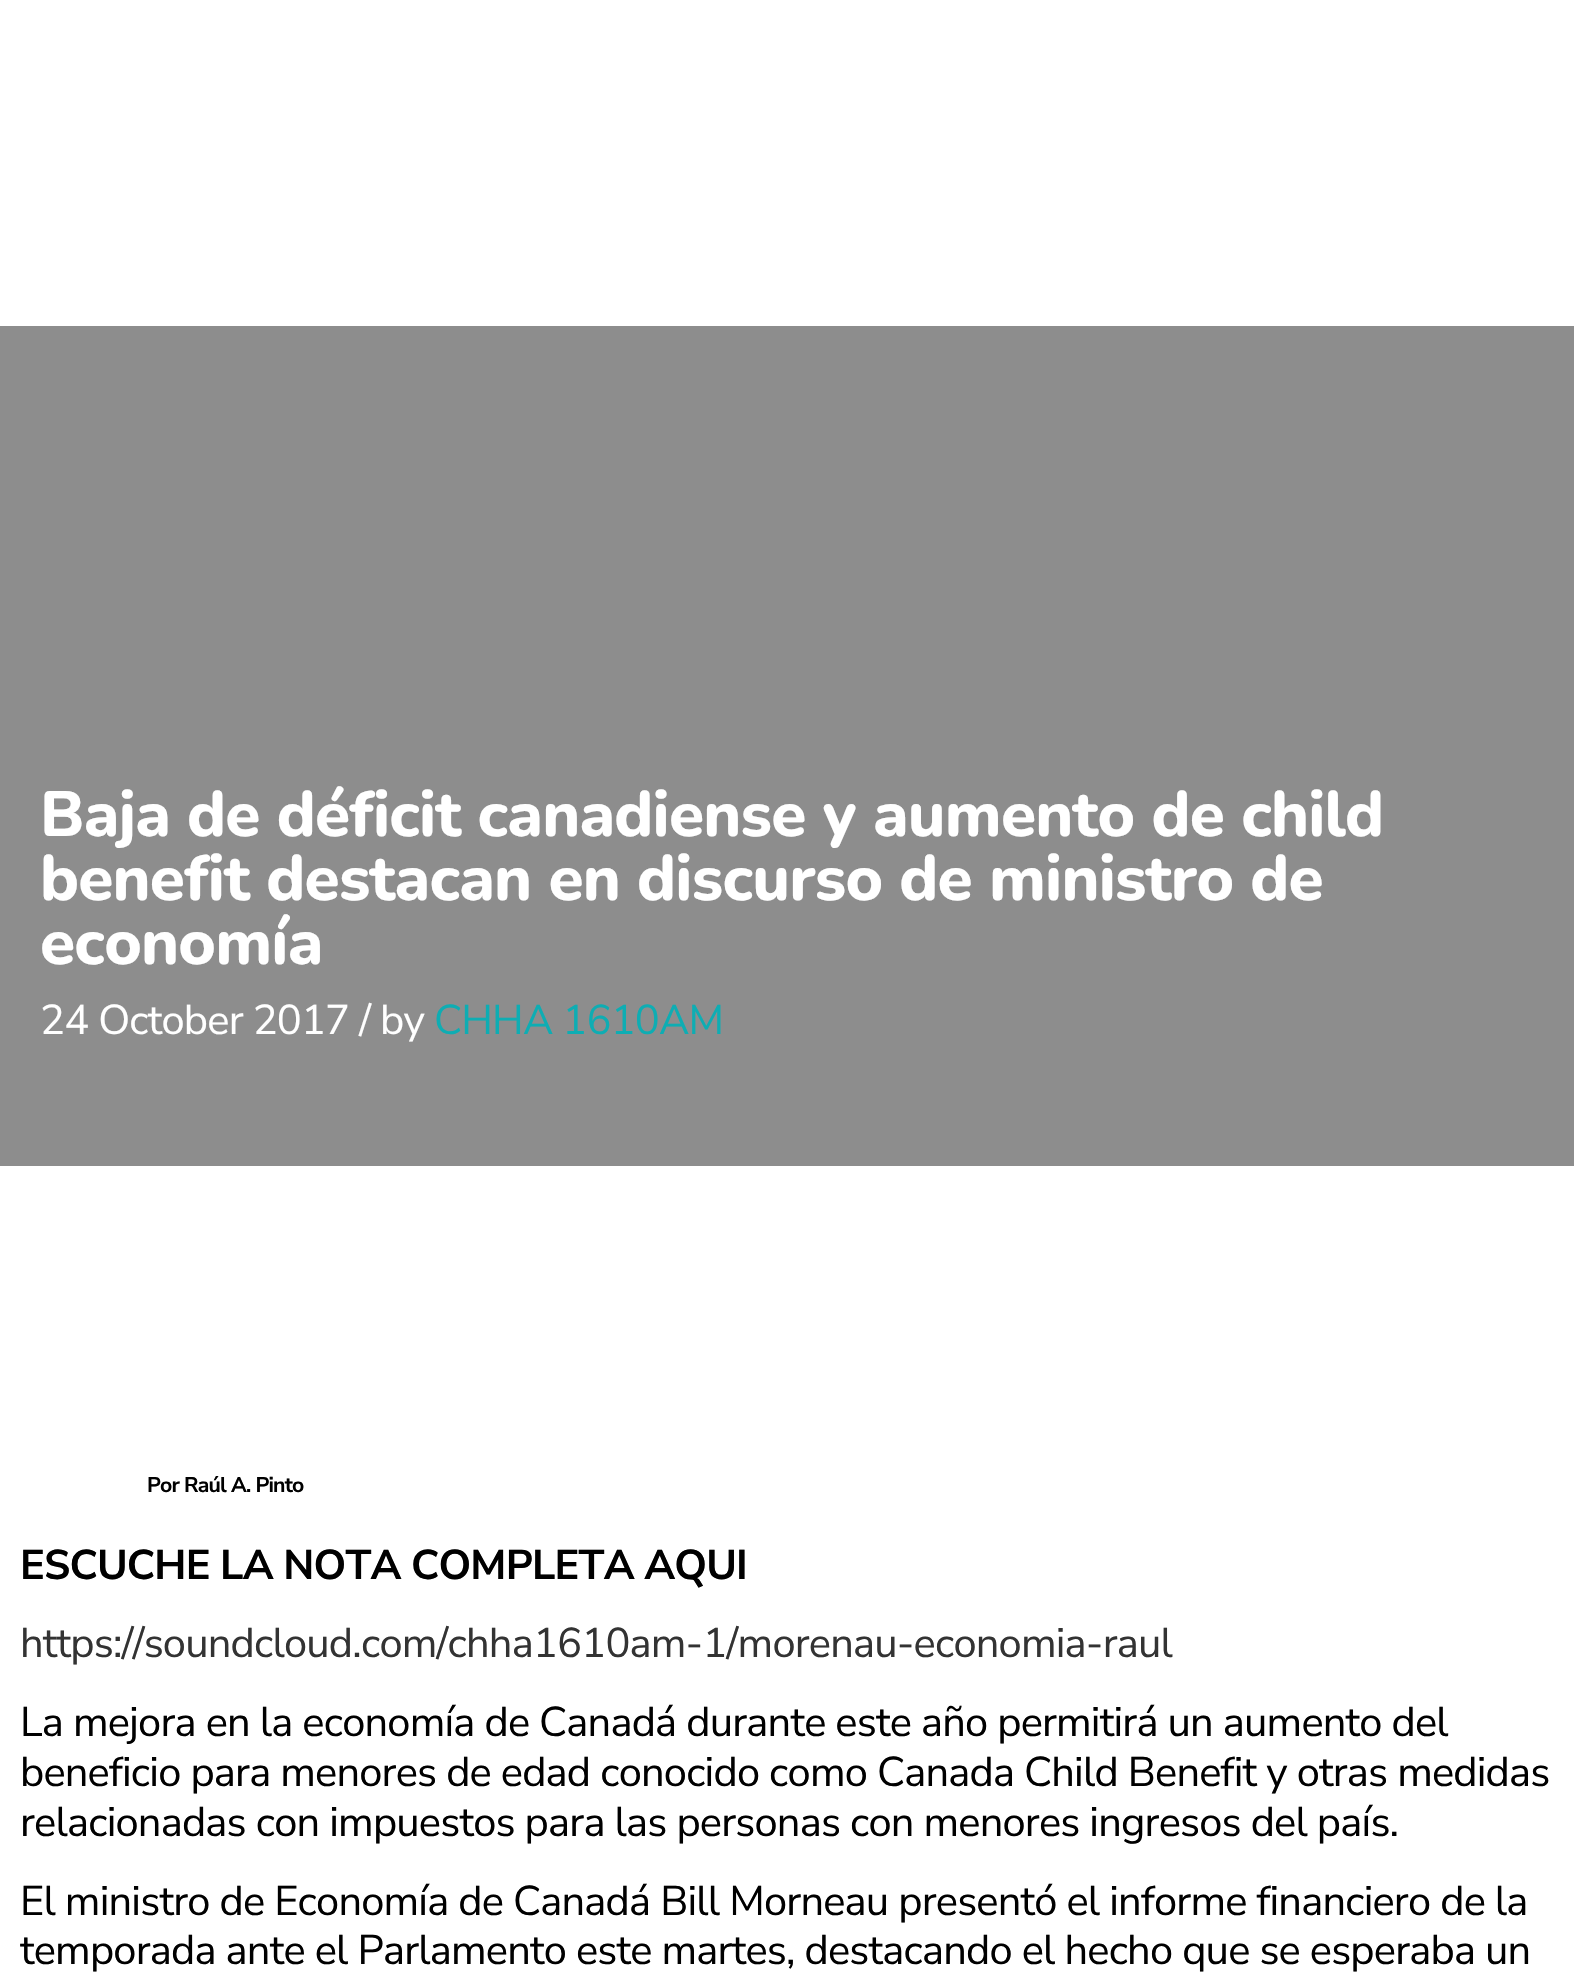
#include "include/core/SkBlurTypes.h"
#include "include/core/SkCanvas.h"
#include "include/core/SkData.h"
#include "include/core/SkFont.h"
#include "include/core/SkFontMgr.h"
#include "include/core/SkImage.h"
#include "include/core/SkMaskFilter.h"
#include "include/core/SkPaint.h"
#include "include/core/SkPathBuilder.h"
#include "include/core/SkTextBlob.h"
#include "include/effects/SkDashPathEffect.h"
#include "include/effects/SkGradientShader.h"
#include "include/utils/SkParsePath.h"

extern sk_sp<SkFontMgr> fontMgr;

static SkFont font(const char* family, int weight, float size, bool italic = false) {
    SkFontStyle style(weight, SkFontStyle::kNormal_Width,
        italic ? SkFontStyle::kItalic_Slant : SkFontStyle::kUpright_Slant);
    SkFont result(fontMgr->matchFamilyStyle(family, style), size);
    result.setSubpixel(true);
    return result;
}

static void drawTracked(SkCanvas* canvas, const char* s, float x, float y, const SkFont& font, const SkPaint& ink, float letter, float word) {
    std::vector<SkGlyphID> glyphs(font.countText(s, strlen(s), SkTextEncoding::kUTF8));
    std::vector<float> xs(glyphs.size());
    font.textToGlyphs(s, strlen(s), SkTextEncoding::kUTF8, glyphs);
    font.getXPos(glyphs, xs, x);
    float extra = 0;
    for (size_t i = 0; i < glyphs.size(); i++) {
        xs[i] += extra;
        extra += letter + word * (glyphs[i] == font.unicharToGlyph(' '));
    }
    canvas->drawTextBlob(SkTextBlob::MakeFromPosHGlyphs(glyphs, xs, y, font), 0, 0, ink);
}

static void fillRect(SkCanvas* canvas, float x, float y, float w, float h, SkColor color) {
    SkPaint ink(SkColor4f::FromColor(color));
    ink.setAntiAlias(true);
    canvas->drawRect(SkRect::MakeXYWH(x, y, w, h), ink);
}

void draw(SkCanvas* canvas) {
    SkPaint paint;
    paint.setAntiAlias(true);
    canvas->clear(0xFFFFFFFF);
    fillRect(canvas, 0, 326, 1574, 840, 0xFF8D8D8D);
    SkFont font1 = font("Nunito", 800, 64);
    paint.setColor(0xFFFFFFFF);
    drawTracked(canvas, "Baja de déficit canadiense y aumento de child", 40, 836, font1, paint, -0.8f, 0);
    drawTracked(canvas, "benefit destacan en discurso de ministro de", 40, 900, font1, paint, -0.8f, 0);
    drawTracked(canvas, "economía", 40, 964, font1, paint, -0.8f, 0);
    SkFont font2 = font("Nunito Sans", 400, 41.6f);
    drawTracked(canvas, "24 October 2017 / by", 40, 1034, font2, paint, -0.8f, 0);
    paint.setColor(0xFF0EADB3);
    drawTracked(canvas, "CHHA 1610AM", 434, 1034, font2, paint, -0.8f, 0);
    SkFont font3 = font("Nunito Sans", 700, 21.25f);
    paint.setColor(0xFF000000);
    drawTracked(canvas, "Por Raúl A. Pinto", 147, 1492, font3, paint, -0.8f, 0);
    SkFont font4 = font("Nunito Sans", 700, 41.6f);
    drawTracked(canvas, "ESCUCHE LA NOTA COMPLETA AQUI", 20, 1579, font4, paint, -0.8f, 0);
    paint.setColor(0xFF333333);
    drawTracked(canvas, "https://soundcloud.com/chha1610am-1/morenau-economia-raul", 20, 1657, font2, paint, -0.8f, 0);
    paint.setColor(0xFF000000);
    drawTracked(canvas, "La mejora en la economía de Canadá durante este año permitirá un aumento del", 20, 1736, font2, paint, -0.8f, 0);
    drawTracked(canvas, "beneficio para menores de edad conocido como Canada Child Benefit y otras medidas", 20, 1786, font2, paint, -0.8f, 0);
    drawTracked(canvas, "relacionadas con impuestos para las personas con menores ingresos del país.", 20, 1836, font2, paint, -0.8f, 0);
    drawTracked(canvas, "El ministro de Economía de Canadá Bill Morneau presentó el informe financiero de la", 20, 1915, font2, paint, -0.8f, 0);
    drawTracked(canvas, "temporada ante el Parlamento este martes, destacando el hecho que se esperaba un", 20, 1964, font2, paint, -0.8f, 0);
}
